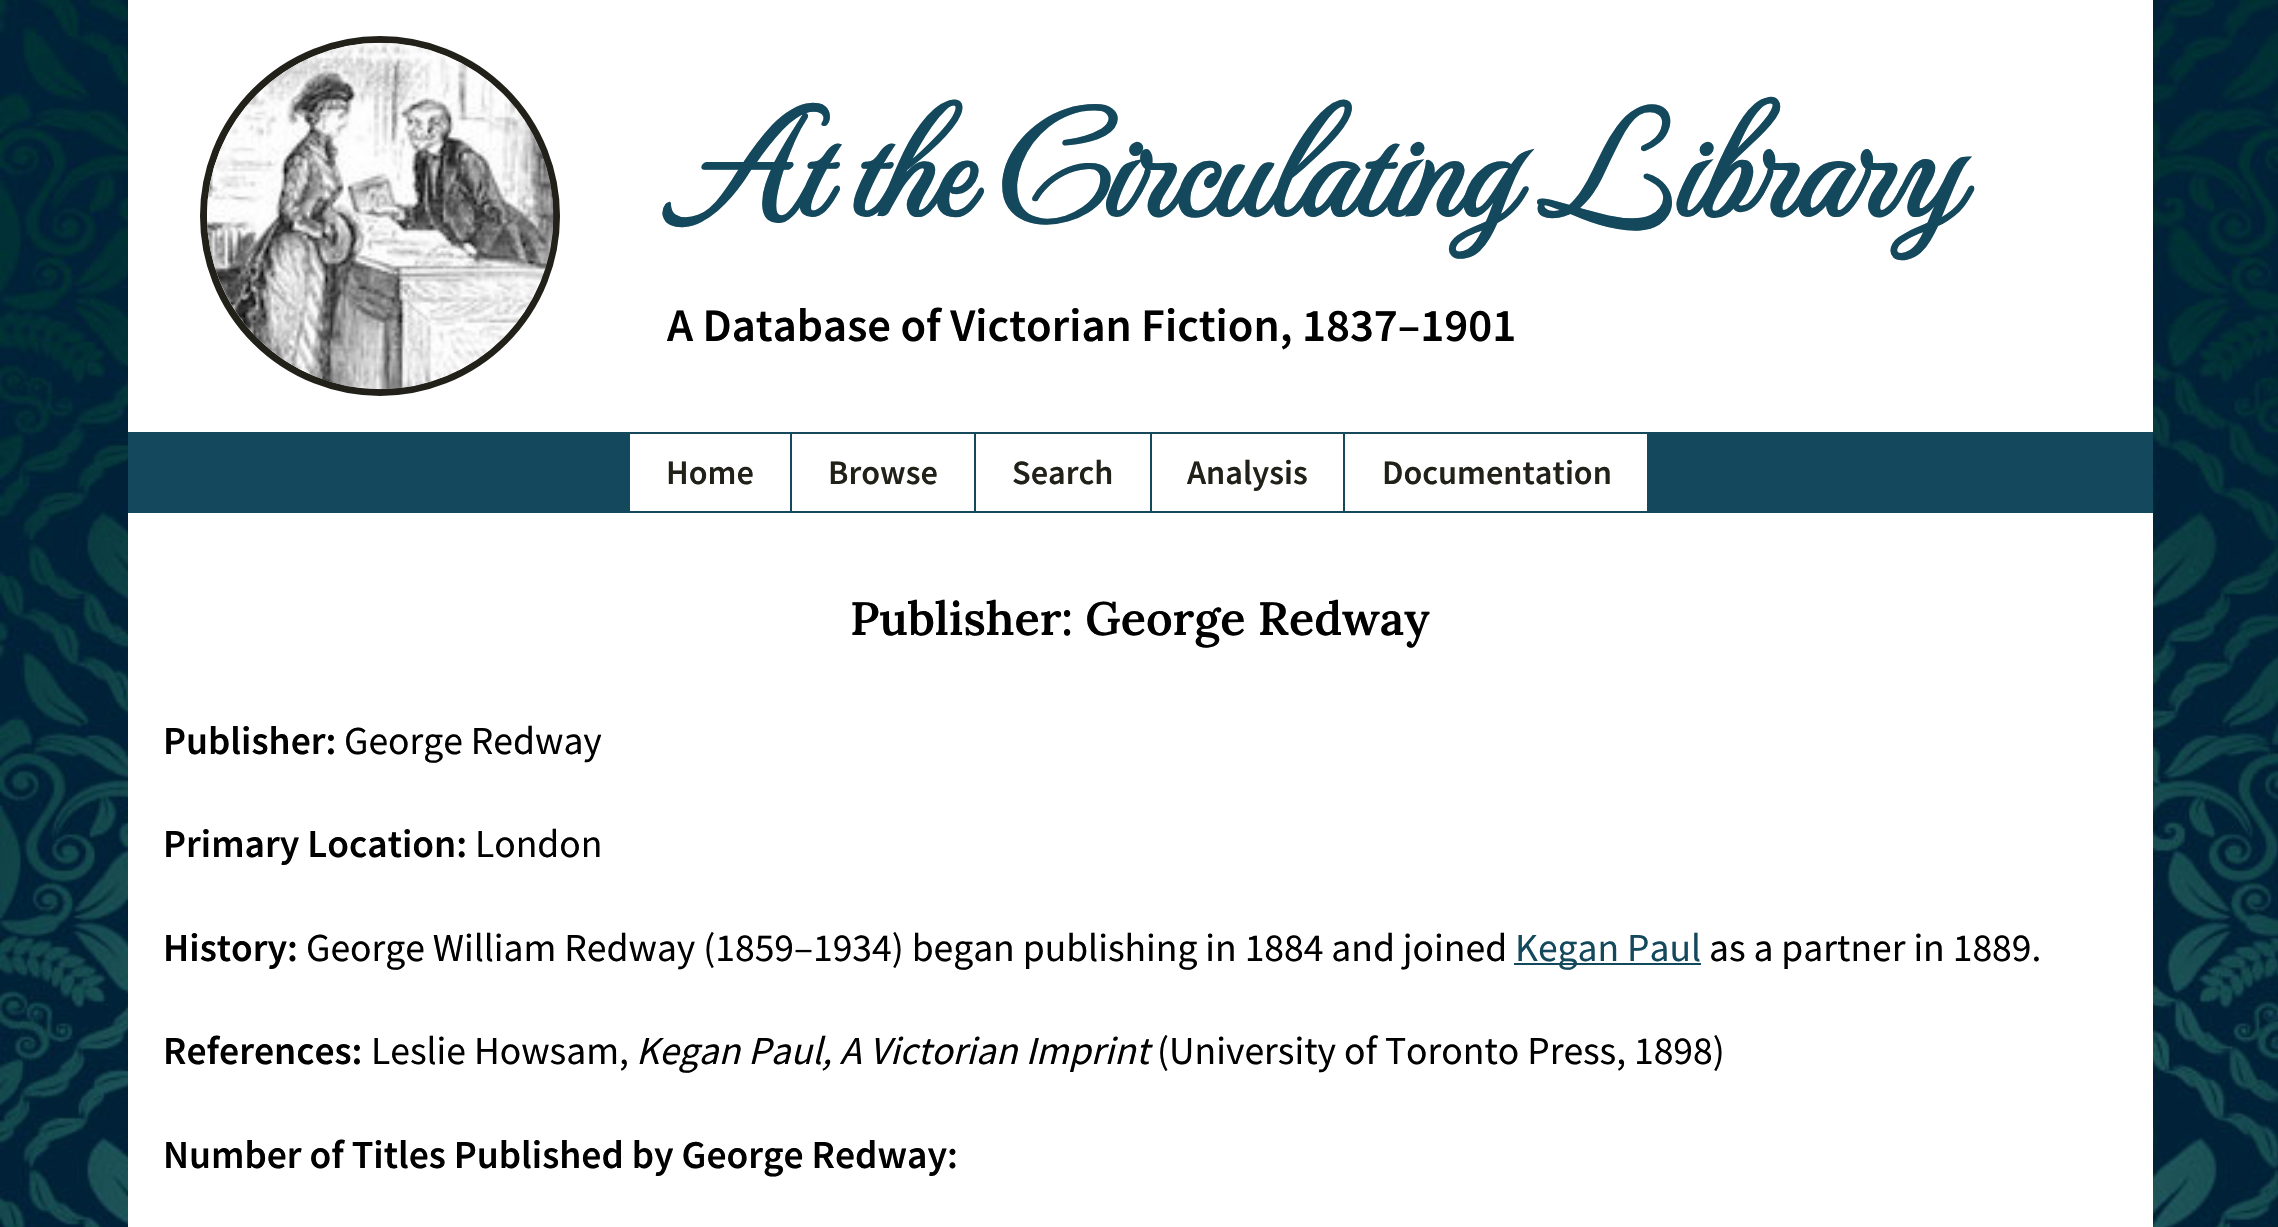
#include "include/core/SkBlurTypes.h"
#include "include/core/SkCanvas.h"
#include "include/core/SkData.h"
#include "include/core/SkFont.h"
#include "include/core/SkFontMgr.h"
#include "include/core/SkImage.h"
#include "include/core/SkMaskFilter.h"
#include "include/core/SkPaint.h"
#include "include/core/SkPathBuilder.h"
#include "include/core/SkTextBlob.h"
#include "include/effects/SkDashPathEffect.h"
#include "include/effects/SkGradientShader.h"
#include "include/utils/SkParsePath.h"

extern sk_sp<SkFontMgr> fontMgr;

static SkFont font(const char* family, int weight, float size, bool italic = false) {
    SkFontStyle style(weight, SkFontStyle::kNormal_Width,
        italic ? SkFontStyle::kItalic_Slant : SkFontStyle::kUpright_Slant);
    SkFont result(fontMgr->matchFamilyStyle(family, style), size);
    result.setSubpixel(true);
    return result;
}

static void drawLabel(SkCanvas* canvas, const char* s, float x, float y, const SkFont& font, SkColor color) {
    SkPaint ink(SkColor4f::FromColor(color));
    ink.setAntiAlias(true);
    canvas->drawString(s, x, y, font, ink);
}

static void drawTracked(SkCanvas* canvas, const char* s, float x, float y, const SkFont& font, const SkPaint& ink, float letter, float word) {
    std::vector<SkGlyphID> glyphs(font.countText(s, strlen(s), SkTextEncoding::kUTF8));
    std::vector<float> xs(glyphs.size());
    font.textToGlyphs(s, strlen(s), SkTextEncoding::kUTF8, glyphs);
    font.getXPos(glyphs, xs, x);
    float extra = 0;
    for (size_t i = 0; i < glyphs.size(); i++) {
        xs[i] += extra;
        extra += letter + word * (glyphs[i] == font.unicharToGlyph(' '));
    }
    canvas->drawTextBlob(SkTextBlob::MakeFromPosHGlyphs(glyphs, xs, y, font), 0, 0, ink);
}

static void fillRect(SkCanvas* canvas, float x, float y, float w, float h, SkColor color) {
    SkPaint ink(SkColor4f::FromColor(color));
    ink.setAntiAlias(true);
    canvas->drawRect(SkRect::MakeXYWH(x, y, w, h), ink);
}

static void drawPhoto(SkCanvas* canvas, const char* path, float x, float y, float w, float h) {
    auto image = SkImages::DeferredFromEncodedData(SkData::MakeFromFileName(path));
    canvas->drawImageRect(image, SkRect::MakeXYWH(x, y, w, h), SkSamplingOptions());
}

void draw(SkCanvas* canvas) {
    SkPaint paint;
    paint.setAntiAlias(true);
    canvas->clear(0xFFFFFFFF);
    drawPhoto(canvas, "assets/img1.png", 0, 0, 2278, 1227);
    fillRect(canvas, 128, 0, 2025, 432, 0xFFFFFFFF);
    paint.setStroke(true);
    paint.setStrokeWidth(7);
    paint.setColor(0xFF212119);
    canvas->drawCircle(380, 216, 176.5f, paint);
    drawPhoto(canvas, "assets/img2.png", 207, 42, 347, 348);
    SkFont font1 = font("MonteCarlo", 700, 154.75f);
    paint.setStroke(false);
    paint.setColor(0xFF14485C);
    drawTracked(canvas, "At the Circulating Library", 667, 216, font1, paint, 0, -2);
    SkFont font2 = font("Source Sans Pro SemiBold", 600, 46.75f);
    drawLabel(canvas, "A Database of Victorian Fiction, 1837–1901", 667, 341, font2, 0xFF000000);
    fillRect(canvas, 128, 432, 2025, 81, 0xFF14485C);
    fillRect(canvas, 630, 434, 160, 77, 0xFFFFFFFF);
    SkFont font3 = font("Source Sans Pro SemiBold", 600, 34.25f);
    drawLabel(canvas, "Home", 666, 484, font3, 0xFF212119);
    fillRect(canvas, 792, 434, 182, 77, 0xFFFFFFFF);
    drawLabel(canvas, "Browse", 828, 484, font3, 0xFF212119);
    fillRect(canvas, 976, 434, 174, 77, 0xFFFFFFFF);
    drawLabel(canvas, "Search", 1012, 484, font3, 0xFF212119);
    fillRect(canvas, 1152, 434, 191, 77, 0xFFFFFFFF);
    drawLabel(canvas, "Analysis", 1187, 484, font3, 0xFF212119);
    fillRect(canvas, 1345, 434, 302, 77, 0xFFFFFFFF);
    drawLabel(canvas, "Documentation", 1382, 484, font3, 0xFF212119);
    fillRect(canvas, 128, 513, 2025, 714, 0xFFFFFFFF);
    SkFont font4 = font("Lora", 600, 46.75f);
    drawLabel(canvas, "Publisher: George Redway", 850, 635, font4, 0xFF000000);
    SkFont font5 = font("Source Sans Pro SemiBold", 600, 39.6f);
    drawLabel(canvas, "Publisher:", 163, 754, font5, 0xFF000000);
    SkFont font6 = font("Source Sans Pro", 400, 39.6f);
    drawLabel(canvas, "George Redway", 344, 754, font6, 0xFF000000);
    drawLabel(canvas, "Primary Location:", 163, 857, font5, 0xFF000000);
    drawLabel(canvas, "London", 475, 857, font6, 0xFF000000);
    drawLabel(canvas, "History:", 163, 961, font5, 0xFF000000);
    drawLabel(canvas, "George William Redway (1859–1934) began publishing in 1884 and joined", 306, 961, font6, 0xFF000000);
    fillRect(canvas, 1514, 963, 187, 2, 0xFF14485C);
    drawLabel(canvas, "Kegan Paul", 1515, 961, font6, 0xFF14485C);
    drawLabel(canvas, "as a partner in 1889.", 1709, 961, font6, 0xFF000000);
    drawLabel(canvas, "References:", 163, 1064, font5, 0xFF000000);
    drawLabel(canvas, "Leslie Howsam,", 371, 1064, font6, 0xFF000000);
    SkFont font7 = font("Source Sans Pro", 400, 39.6f, true);
    drawLabel(canvas, "Kegan Paul, A Victorian Imprint", 636, 1064, font7, 0xFF000000);
    drawLabel(canvas, "(University of Toronto Press, 1898)", 1157, 1064, font6, 0xFF000000);
    drawLabel(canvas, "Number of Titles Published by George Redway:", 163, 1168, font5, 0xFF000000);
}
